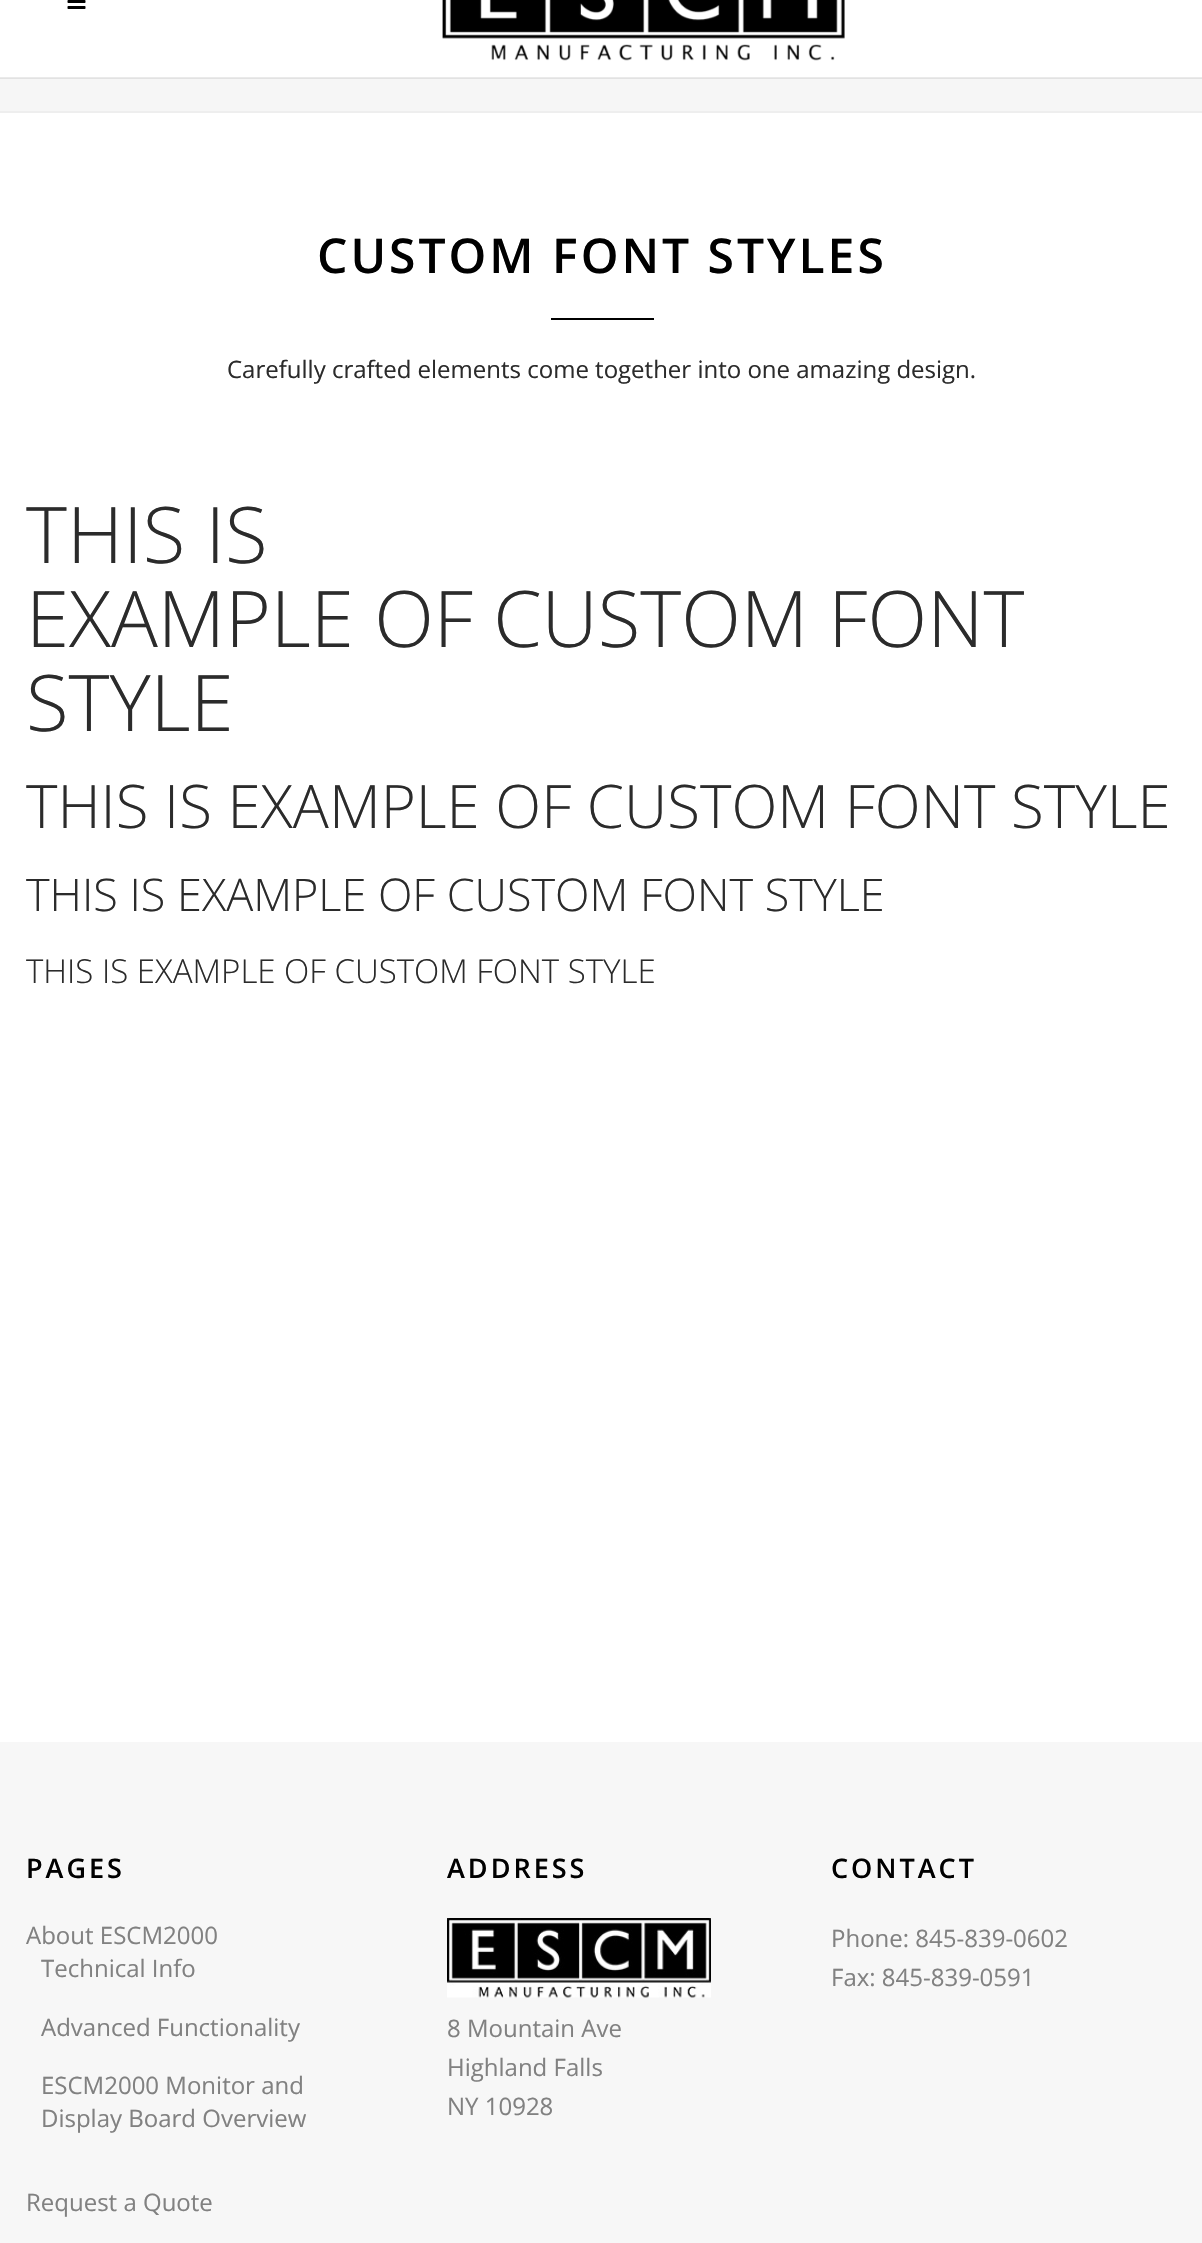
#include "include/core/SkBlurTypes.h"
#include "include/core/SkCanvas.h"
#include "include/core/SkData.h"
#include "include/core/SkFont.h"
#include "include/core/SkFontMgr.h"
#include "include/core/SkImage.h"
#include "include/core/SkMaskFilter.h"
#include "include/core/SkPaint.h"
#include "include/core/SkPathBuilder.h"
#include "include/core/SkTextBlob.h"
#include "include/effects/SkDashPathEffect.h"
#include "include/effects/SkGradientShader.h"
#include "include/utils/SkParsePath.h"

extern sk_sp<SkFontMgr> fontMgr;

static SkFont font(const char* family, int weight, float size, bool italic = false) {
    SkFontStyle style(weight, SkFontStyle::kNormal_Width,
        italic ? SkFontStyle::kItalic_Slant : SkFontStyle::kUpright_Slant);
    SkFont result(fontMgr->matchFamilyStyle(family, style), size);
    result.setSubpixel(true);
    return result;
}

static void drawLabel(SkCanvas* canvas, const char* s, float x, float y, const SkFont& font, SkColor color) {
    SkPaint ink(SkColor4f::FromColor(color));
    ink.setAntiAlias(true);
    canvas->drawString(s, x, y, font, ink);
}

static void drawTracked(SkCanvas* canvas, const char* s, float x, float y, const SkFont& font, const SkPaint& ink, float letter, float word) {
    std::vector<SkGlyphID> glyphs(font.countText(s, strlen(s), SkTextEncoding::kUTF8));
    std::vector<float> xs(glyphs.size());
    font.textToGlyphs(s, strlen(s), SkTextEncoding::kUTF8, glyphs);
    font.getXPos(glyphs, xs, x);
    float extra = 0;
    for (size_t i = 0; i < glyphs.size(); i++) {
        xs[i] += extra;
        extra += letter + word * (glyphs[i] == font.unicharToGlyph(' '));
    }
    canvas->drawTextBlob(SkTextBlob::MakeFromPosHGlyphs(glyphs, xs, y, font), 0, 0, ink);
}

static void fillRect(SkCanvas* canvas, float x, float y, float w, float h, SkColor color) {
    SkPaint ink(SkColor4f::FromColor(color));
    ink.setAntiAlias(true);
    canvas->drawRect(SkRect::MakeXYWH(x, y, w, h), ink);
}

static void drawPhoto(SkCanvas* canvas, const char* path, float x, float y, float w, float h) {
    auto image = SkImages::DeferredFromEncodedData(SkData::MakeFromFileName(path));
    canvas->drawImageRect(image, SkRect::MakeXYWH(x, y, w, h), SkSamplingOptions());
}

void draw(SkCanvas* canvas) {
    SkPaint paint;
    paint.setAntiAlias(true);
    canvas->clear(0xFFFFFFFF);
    fillRect(canvas, 0, 77, 1202, 1, 0xFFEAEAEA);
    drawPhoto(canvas, "assets/img1.png", 67, 0, 19, 9);
    drawPhoto(canvas, "assets/img2.png", 442, 0, 403, 61);
    fillRect(canvas, 0, 79, 1202, 32, 0xFFF6F6F6);
    fillRect(canvas, 0, 78, 1202, 1, 0xFFE2E2E2);
    fillRect(canvas, 0, 111, 1202, 2, 0xFFEEEEEE);
    SkFont font1 = font("Open Sans", 600, 48);
    paint.setColor(0xFF000000);
    drawTracked(canvas, "CUSTOM FONT STYLES", 317, 273, font1, paint, 3, 0);
    fillRect(canvas, 551, 318, 103, 2, 0xFF000000);
    SkFont font2 = font("Open Sans", 400, 24);
    drawLabel(canvas, "Carefully crafted elements come together into one amazing design.", 227, 378, font2, 0xFF2B2B2B);
    SkFont font3 = font("Open Sans", 300, 78);
    drawLabel(canvas, "THIS IS", 26, 563, font3, 0xFF2B2B2B);
    drawLabel(canvas, "EXAMPLE OF CUSTOM FONT", 26, 647, font3, 0xFF2B2B2B);
    drawLabel(canvas, "STYLE", 26, 731, font3, 0xFF2B2B2B);
    SkFont font4 = font("Open Sans", 300, 60);
    drawLabel(canvas, "THIS IS EXAMPLE OF CUSTOM FONT STYLE", 26, 828, font4, 0xFF2B2B2B);
    SkFont font5 = font("Open Sans", 300, 45);
    drawLabel(canvas, "THIS IS EXAMPLE OF CUSTOM FONT STYLE", 26, 911, font5, 0xFF2B2B2B);
    SkFont font6 = font("Open Sans", 300, 33);
    drawLabel(canvas, "THIS IS EXAMPLE OF CUSTOM FONT STYLE", 26, 983, font6, 0xFF2B2B2B);
    fillRect(canvas, 0, 1742, 1202, 501, 0xFFF7F7F7);
    SkFont font7 = font("Open Sans", 600, 27);
    drawTracked(canvas, "PAGES", 26, 1878, font7, paint, 3, 0);
    drawLabel(canvas, "About ESCM2000", 26, 1944, font2, 0xFF818181);
    drawLabel(canvas, "Technical Info", 41, 1977, font2, 0xFF818181);
    drawLabel(canvas, "Advanced Functionality", 41, 2036, font2, 0xFF818181);
    drawLabel(canvas, "ESCM2000 Monitor and", 41, 2094, font2, 0xFF818181);
    drawLabel(canvas, "Display Board Overview", 41, 2127, font2, 0xFF818181);
    drawLabel(canvas, "Request a Quote", 26, 2211, font2, 0xFF818181);
    drawTracked(canvas, "ADDRESS", 447, 1878, font7, paint, 3, 0);
    drawPhoto(canvas, "assets/img3.png", 447, 1918, 264, 80);
    drawLabel(canvas, "8 Mountain Ave", 447, 2037, font2, 0xFF818181);
    drawLabel(canvas, "Highland Falls", 447, 2076, font2, 0xFF818181);
    drawLabel(canvas, "NY 10928", 447, 2115, font2, 0xFF818181);
    drawTracked(canvas, "CONTACT", 831, 1878, font7, paint, 3, 0);
    drawLabel(canvas, "Phone: 845-839-0602", 831, 1947, font2, 0xFF818181);
    drawLabel(canvas, "Fax: 845-839-0591", 831, 1986, font2, 0xFF818181);
}
